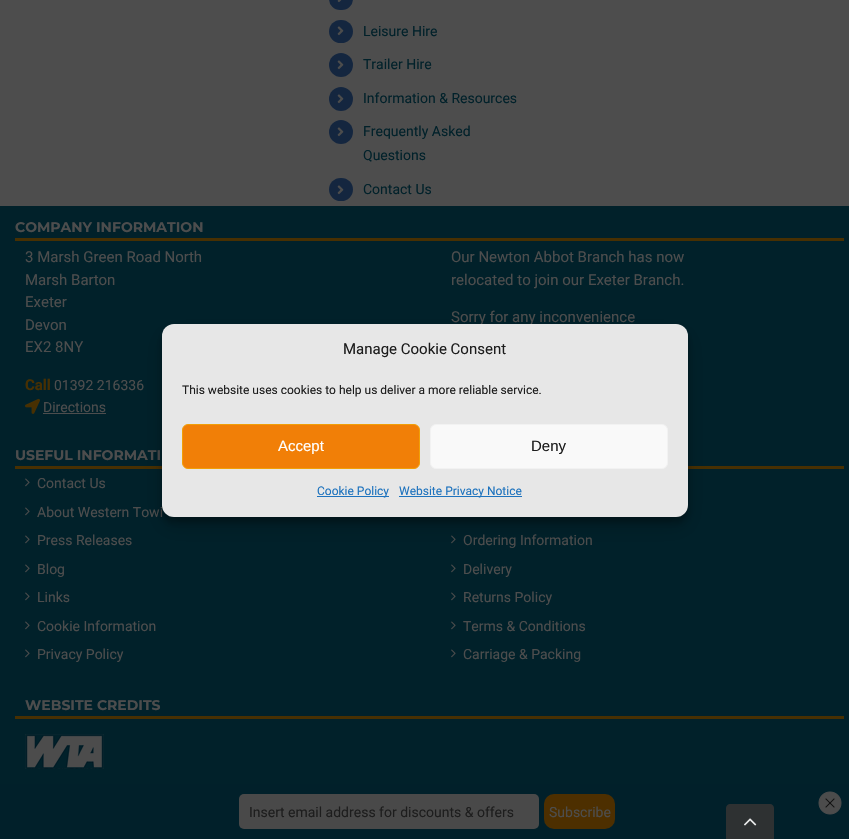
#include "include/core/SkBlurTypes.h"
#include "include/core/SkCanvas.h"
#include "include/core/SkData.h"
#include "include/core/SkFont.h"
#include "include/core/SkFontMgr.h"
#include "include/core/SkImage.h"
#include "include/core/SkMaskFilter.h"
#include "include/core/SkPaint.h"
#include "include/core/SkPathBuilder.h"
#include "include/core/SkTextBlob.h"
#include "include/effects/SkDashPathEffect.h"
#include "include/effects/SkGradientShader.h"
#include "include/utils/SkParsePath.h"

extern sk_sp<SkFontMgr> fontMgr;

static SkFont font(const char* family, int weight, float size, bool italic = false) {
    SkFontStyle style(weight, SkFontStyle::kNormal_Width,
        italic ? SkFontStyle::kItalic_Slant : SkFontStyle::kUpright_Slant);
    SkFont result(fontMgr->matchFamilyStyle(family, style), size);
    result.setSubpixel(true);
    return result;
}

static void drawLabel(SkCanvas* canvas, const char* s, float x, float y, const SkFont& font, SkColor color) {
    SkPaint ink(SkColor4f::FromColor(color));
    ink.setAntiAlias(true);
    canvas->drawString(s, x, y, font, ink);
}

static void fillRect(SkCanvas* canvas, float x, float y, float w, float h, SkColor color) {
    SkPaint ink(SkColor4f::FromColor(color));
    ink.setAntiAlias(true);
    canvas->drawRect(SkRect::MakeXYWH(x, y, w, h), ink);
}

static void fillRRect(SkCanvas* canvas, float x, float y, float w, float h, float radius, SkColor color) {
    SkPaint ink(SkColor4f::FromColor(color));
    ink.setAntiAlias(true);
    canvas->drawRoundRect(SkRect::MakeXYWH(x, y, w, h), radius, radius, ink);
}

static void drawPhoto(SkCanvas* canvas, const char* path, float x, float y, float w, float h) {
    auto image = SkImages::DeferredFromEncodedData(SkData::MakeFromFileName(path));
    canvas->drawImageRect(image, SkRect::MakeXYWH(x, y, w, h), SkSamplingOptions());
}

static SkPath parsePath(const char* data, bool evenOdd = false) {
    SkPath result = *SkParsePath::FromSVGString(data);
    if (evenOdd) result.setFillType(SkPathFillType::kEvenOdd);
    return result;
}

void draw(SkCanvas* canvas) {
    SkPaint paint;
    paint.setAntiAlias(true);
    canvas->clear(0xFF4D4D4D);
    fillRRect(canvas, 329, -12, 24, 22, 12, 0xFF14263F);
    drawPhoto(canvas, "assets/img1.png", 337, 0, 5, 3);
    fillRRect(canvas, 329, 20, 24, 23, 11.5f, 0xFF14263F);
    drawPhoto(canvas, "assets/img2.png", 337, 26, 7, 10);
    SkFont font1 = font("Roboto", 400, 14);
    drawLabel(canvas, "Leisure Hire", 363, 36, font1, 0xFF01212A);
    paint.setColor(0xFF14263F);
    canvas->drawCircle(341, 65, 12, paint);
    drawPhoto(canvas, "assets/img2.png", 337, 60, 7, 10);
    drawLabel(canvas, "Trailer Hire", 363, 69, font1, 0xFF01212A);
    canvas->drawCircle(341, 99, 12, paint);
    drawPhoto(canvas, "assets/img2.png", 337, 94, 7, 10);
    drawLabel(canvas, "Information & Resources", 363, 103, font1, 0xFF01212A);
    canvas->drawCircle(341, 132, 12, paint);
    drawPhoto(canvas, "assets/img2.png", 337, 127, 7, 10);
    drawLabel(canvas, "Frequently Asked", 363, 136, font1, 0xFF01212A);
    drawLabel(canvas, "Questions", 363, 160, font1, 0xFF01212A);
    fillRRect(canvas, 329, 178, 24, 23, 11.5f, 0xFF14263F);
    drawPhoto(canvas, "assets/img2.png", 337, 185, 7, 10);
    drawLabel(canvas, "Contact Us", 363, 194, font1, 0xFF01212A);
    fillRect(canvas, 0, 206, 849, 578, 0xFF01212A);
    SkFont font2 = font("Montserrat", 700, 14);
    drawLabel(canvas, "COMPANY INFORMATION", 15, 232, font2, 0xFF4D4D4D);
    fillRect(canvas, 15, 238, 829, 3, 0xFF483002);
    SkFont font3 = font("Roboto", 400, 15);
    drawLabel(canvas, "3 Marsh Green Road North", 25, 262, font3, 0xFF4D4D4D);
    drawLabel(canvas, "Marsh Barton", 25, 285, font3, 0xFF4D4D4D);
    drawLabel(canvas, "Exeter", 25, 307, font3, 0xFF4D4D4D);
    drawLabel(canvas, "Devon", 25, 330, font3, 0xFF4D4D4D);
    drawLabel(canvas, "EX2 8NY", 25, 352, font3, 0xFF4D4D4D);
    SkFont font4 = font("Roboto", 700, 15);
    drawLabel(canvas, "Call", 25, 390, font4, 0xFF483002);
    drawLabel(canvas, "01392 216336", 54, 390, font1, 0xFF4D4D4D);
    drawPhoto(canvas, "assets/img3.png", 25, 398, 15, 16);
    drawLabel(canvas, "Directions", 43, 412, font1, 0xFF4D4D4D);
    fillRect(canvas, 43, 413, 63, 1, 0xFF4D4D4D);
    drawLabel(canvas, "Our Newton Abbot Branch has now", 451, 262, font3, 0xFF4D4D4D);
    drawLabel(canvas, "relocated to join our Exeter Branch.", 451, 285, font3, 0xFF4D4D4D);
    drawLabel(canvas, "Sorry for any inconvenience", 451, 322, font3, 0xFF4D4D4D);
    drawLabel(canvas, "USEFUL INFORMATI", 15, 460, font2, 0xFF4D4D4D);
    fillRect(canvas, 15, 466, 829, 3, 0xFF483002);
    drawPhoto(canvas, "assets/img4.png", 25, 478, 5, 9);
    drawLabel(canvas, "Contact Us", 37, 488, font1, 0xFF4D4D4D);
    drawPhoto(canvas, "assets/img4.png", 25, 507, 5, 9);
    drawLabel(canvas, "About Western Towi", 37, 517, font1, 0xFF4D4D4D);
    drawPhoto(canvas, "assets/img4.png", 25, 535, 5, 9);
    drawLabel(canvas, "Press Releases", 37, 545, font1, 0xFF4D4D4D);
    drawPhoto(canvas, "assets/img4.png", 25, 564, 5, 9);
    drawLabel(canvas, "Blog", 37, 574, font1, 0xFF4D4D4D);
    drawPhoto(canvas, "assets/img4.png", 25, 592, 5, 9);
    drawLabel(canvas, "Links", 37, 602, font1, 0xFF4D4D4D);
    drawPhoto(canvas, "assets/img4.png", 25, 621, 5, 9);
    drawLabel(canvas, "Cookie Information", 37, 631, font1, 0xFF4D4D4D);
    drawPhoto(canvas, "assets/img4.png", 25, 649, 5, 9);
    drawLabel(canvas, "Privacy Policy", 37, 659, font1, 0xFF4D4D4D);
    drawPhoto(canvas, "assets/img4.png", 451, 535, 5, 9);
    drawLabel(canvas, "Ordering Information", 463, 545, font1, 0xFF4D4D4D);
    drawPhoto(canvas, "assets/img4.png", 451, 564, 5, 9);
    drawLabel(canvas, "Delivery", 463, 574, font1, 0xFF4D4D4D);
    drawPhoto(canvas, "assets/img4.png", 451, 592, 5, 9);
    drawLabel(canvas, "Returns Policy", 463, 602, font1, 0xFF4D4D4D);
    drawPhoto(canvas, "assets/img4.png", 451, 621, 5, 9);
    drawLabel(canvas, "Terms & Conditions", 463, 631, font1, 0xFF4D4D4D);
    drawPhoto(canvas, "assets/img4.png", 451, 649, 5, 9);
    drawLabel(canvas, "Carriage & Packing", 463, 659, font1, 0xFF4D4D4D);
    drawLabel(canvas, "WEBSITE CREDITS", 25, 710, font2, 0xFF4D4D4D);
    fillRect(canvas, 15, 716, 829, 3, 0xFF483002);
    drawPhoto(canvas, "assets/img5.png", 25, 734, 79, 35);
    paint.setColor(0x3B000000);
    paint.setMaskFilter(SkMaskFilter::MakeBlur(kNormal_SkBlurStyle, 3));
    canvas->drawRoundRect(SkRect::MakeXYWH(162, 330, 526, 193), 12, 12, paint);
    paint.setMaskFilter(nullptr);
    paint.setColor(0x30000000);
    paint.setMaskFilter(SkMaskFilter::MakeBlur(kNormal_SkBlurStyle, 10));
    canvas->drawRoundRect(SkRect::MakeXYWH(162, 334, 526, 193), 12, 12, paint);
    paint.setMaskFilter(nullptr);
    fillRRect(canvas, 162, 324, 526, 193, 12, 0xFFE7E7E7);
    drawLabel(canvas, "Manage Cookie Consent", 343, 354, font3, 0xFF1D1D1D);
    SkFont font5 = font("Roboto", 400, 12);
    drawLabel(canvas, "This website uses cookies to help us deliver a more reliable service.", 182, 394, font5, 0xFF1D1D1D);
    paint.setColor(0xFFF17F07);
    canvas->drawRoundRect(SkRect::MakeXYWH(182.5f, 424.5f, 237, 44), 5.5f, 5.5f, paint);
    paint.setStroke(true);
    paint.setStrokeWidth(1);
    paint.setColor(0xFFF19F07);
    canvas->drawRoundRect(SkRect::MakeXYWH(182.5f, 424.5f, 237, 44), 5.5f, 5.5f, paint);
    SkFont font6 = font("Liberation Sans", 400, 15);
    drawLabel(canvas, "Accept", 278, 451, font6, 0xFFFFFFFF);
    paint.setStroke(false);
    paint.setColor(0xFFF9F9F9);
    canvas->drawRoundRect(SkRect::MakeXYWH(430.5f, 424.5f, 237, 44), 5.5f, 5.5f, paint);
    paint.setStroke(true);
    paint.setColor(0xFFF2F2F2);
    canvas->drawRoundRect(SkRect::MakeXYWH(430.5f, 424.5f, 237, 44), 5.5f, 5.5f, paint);
    drawLabel(canvas, "Deny", 531, 451, font6, 0xFF1D1D1D);
    fillRect(canvas, 317, 496, 72, 1, 0xFF1E73BE);
    drawLabel(canvas, "Cookie Policy", 317, 495, font5, 0xFF1E73BE);
    fillRect(canvas, 399, 496, 123, 1, 0xFF1E73BE);
    drawLabel(canvas, "Website Privacy Notice", 399, 495, font5, 0xFF1E73BE);
    fillRect(canvas, 0, 784, 849, 55, 0xFF01202A);
    fillRRect(canvas, 239, 794, 300, 35, 5, 0xFF494949);
    drawLabel(canvas, "Insert email address for discounts & offers", 249, 817, font1, 0xFF1D1D1D);
    fillRRect(canvas, 544, 794, 71, 35, 10, 0xFF4D2F00);
    drawLabel(canvas, "Subscribe", 549, 817, font1, 0xFF4D4D4D);
    drawPhoto(canvas, "assets/img6.png", 818, 791, 24, 24);
    paint.setStroke(false);
    paint.setColor(0xFF2E3132);
    canvas->drawPath(parsePath("M730 804H770C772 804 774 806 774 808V839H726V808C726 806 728 804 730 804Z"), paint);
    drawPhoto(canvas, "assets/img7.png", 744, 818, 13, 8);
}
